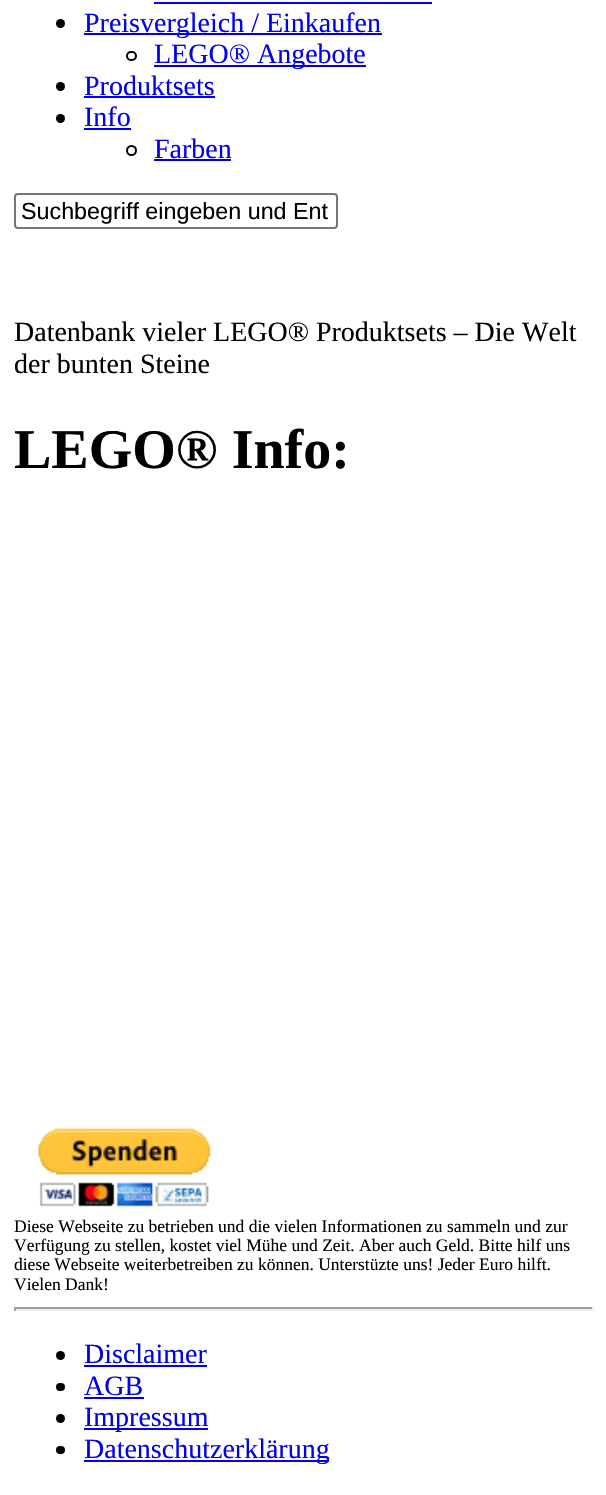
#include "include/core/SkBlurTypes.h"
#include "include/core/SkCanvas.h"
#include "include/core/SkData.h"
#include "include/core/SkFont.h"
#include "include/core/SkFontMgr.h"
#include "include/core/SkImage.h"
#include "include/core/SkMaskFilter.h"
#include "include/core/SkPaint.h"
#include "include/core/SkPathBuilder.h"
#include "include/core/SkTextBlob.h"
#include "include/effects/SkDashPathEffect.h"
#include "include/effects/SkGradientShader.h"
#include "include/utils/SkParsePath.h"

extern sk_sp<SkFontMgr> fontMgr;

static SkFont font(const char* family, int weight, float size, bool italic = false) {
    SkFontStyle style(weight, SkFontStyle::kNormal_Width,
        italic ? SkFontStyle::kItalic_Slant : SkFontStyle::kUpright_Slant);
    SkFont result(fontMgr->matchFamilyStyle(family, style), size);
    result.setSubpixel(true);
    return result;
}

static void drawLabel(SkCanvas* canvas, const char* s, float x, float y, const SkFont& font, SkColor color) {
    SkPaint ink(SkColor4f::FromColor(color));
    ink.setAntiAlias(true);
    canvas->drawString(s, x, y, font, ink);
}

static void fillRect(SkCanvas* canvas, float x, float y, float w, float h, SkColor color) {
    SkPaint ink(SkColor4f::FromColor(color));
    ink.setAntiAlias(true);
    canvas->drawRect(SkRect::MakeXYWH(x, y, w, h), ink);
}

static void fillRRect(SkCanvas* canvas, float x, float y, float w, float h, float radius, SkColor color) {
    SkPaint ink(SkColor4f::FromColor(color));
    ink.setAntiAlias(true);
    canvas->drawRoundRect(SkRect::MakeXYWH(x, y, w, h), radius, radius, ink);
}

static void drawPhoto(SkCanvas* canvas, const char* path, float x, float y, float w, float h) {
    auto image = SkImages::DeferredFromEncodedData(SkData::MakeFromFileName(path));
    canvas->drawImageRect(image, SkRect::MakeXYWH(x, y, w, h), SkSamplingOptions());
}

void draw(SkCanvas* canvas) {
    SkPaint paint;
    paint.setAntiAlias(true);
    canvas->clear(0xFFFFFFFF);
    fillRect(canvas, 154, 2, 278, 2, 0xFF0000EE);
    paint.setColor(0xFF000000);
    canvas->drawCircle(60.5f, 23.5f, 4.5f, paint);
    fillRect(canvas, 84, 33, 298, 2, 0xFF0000EE);
    SkFont font1 = font("Liberation Serif", 400, 28);
    drawLabel(canvas, "Preisvergleich / Einkaufen", 84, 32, font1, 0xFF0000EE);
    paint.setStroke(true);
    paint.setStrokeWidth(2);
    canvas->drawRoundRect(SkRect::MakeXYWH(127, 52, 9, 8), 4, 4, paint);
    fillRect(canvas, 154, 65, 212, 2, 0xFF0000EE);
    drawLabel(canvas, "LEGO® Angebote", 154, 63, font1, 0xFF0000EE);
    paint.setStroke(false);
    canvas->drawCircle(60.5f, 86.5f, 4.5f, paint);
    drawLabel(canvas, "Produktsets", 84, 95, font1, 0xFF0000EE);
    fillRect(canvas, 84, 96, 131, 2, 0xFF0000EE);
    canvas->drawCircle(60.5f, 118.5f, 4.5f, paint);
    drawLabel(canvas, "Info", 84, 126, font1, 0xFF0000EE);
    fillRect(canvas, 84, 128, 47, 2, 0xFF0000EE);
    paint.setStroke(true);
    canvas->drawCircle(131.5f, 150.5f, 4.5f, paint);
    drawLabel(canvas, "Farben", 154, 158, font1, 0xFF0000EE);
    fillRect(canvas, 154, 159, 77, 2, 0xFF0000EE);
    paint.setColor(0xFF767676);
    canvas->drawRoundRect(SkRect::MakeXYWH(15, 194, 322, 34), 3, 3, paint);
    SkFont font2 = font("Liberation Sans", 400, 23.3f);
    drawLabel(canvas, "Suchbegriff eingeben und Ent", 21, 219, font2, 0xFF000000);
    drawLabel(canvas, "Datenbank vieler LEGO® Produktsets – Die Welt", 14, 341, font1, 0xFF000000);
    drawLabel(canvas, "der bunten Steine", 14, 373, font1, 0xFF000000);
    SkFont font3 = font("Liberation Serif", 700, 56);
    drawLabel(canvas, "LEGO® Info:", 14, 468, font3, 0xFF000000);
    drawPhoto(canvas, "assets/img1.png", 38, 1128, 173, 79);
    SkFont font4 = font("Liberation Serif", 400, 17.5f);
    drawLabel(canvas, "Diese Webseite zu betrieben und die vielen Informationen zu sammeln und zur", 14, 1232, font4, 0xFF000000);
    drawLabel(canvas, "Verfügung zu stellen, kostet viel Mühe und Zeit. Aber auch Geld. Bitte hilf uns", 14, 1251, font4, 0xFF000000);
    drawLabel(canvas, "diese Webseite weiterbetreiben zu können. Unterstüzte uns! Jeder Euro hilft.", 14, 1270, font4, 0xFF000000);
    drawLabel(canvas, "Vielen Dank!", 14, 1290, font4, 0xFF000000);
    fillRect(canvas, 14, 1307, 579, 2, 0xFF9F9F9F);
    fillRect(canvas, 592, 1307, 2, 4, 0xFFEEEEEE);
    fillRect(canvas, 14, 1309, 579, 2, 0xFFEEEEEE);
    fillRect(canvas, 14, 1307, 2, 4, 0xFF9F9F9F);
    paint.setStroke(false);
    paint.setColor(0xFF000000);
    canvas->drawCircle(60.5f, 1355.5f, 4.5f, paint);
    drawLabel(canvas, "Disclaimer", 84, 1363, font1, 0xFF0000EE);
    fillRect(canvas, 84, 1365, 123, 2, 0xFF0000EE);
    fillRRect(canvas, 56, 1383, 9, 8, 4, 0xFF000000);
    drawLabel(canvas, "AGB", 84, 1395, font1, 0xFF0000EE);
    fillRect(canvas, 84, 1397, 60, 2, 0xFF0000EE);
    canvas->drawCircle(60.5f, 1418.5f, 4.5f, paint);
    fillRect(canvas, 84, 1428, 124, 2, 0xFF0000EE);
    drawLabel(canvas, "Impressum", 84, 1426, font1, 0xFF0000EE);
    fillRRect(canvas, 56, 1446, 9, 8, 4, 0xFF000000);
    fillRect(canvas, 84, 1460, 245, 2, 0xFF0000EE);
    drawLabel(canvas, "Datenschutzerklärung", 84, 1458, font1, 0xFF0000EE);
}
